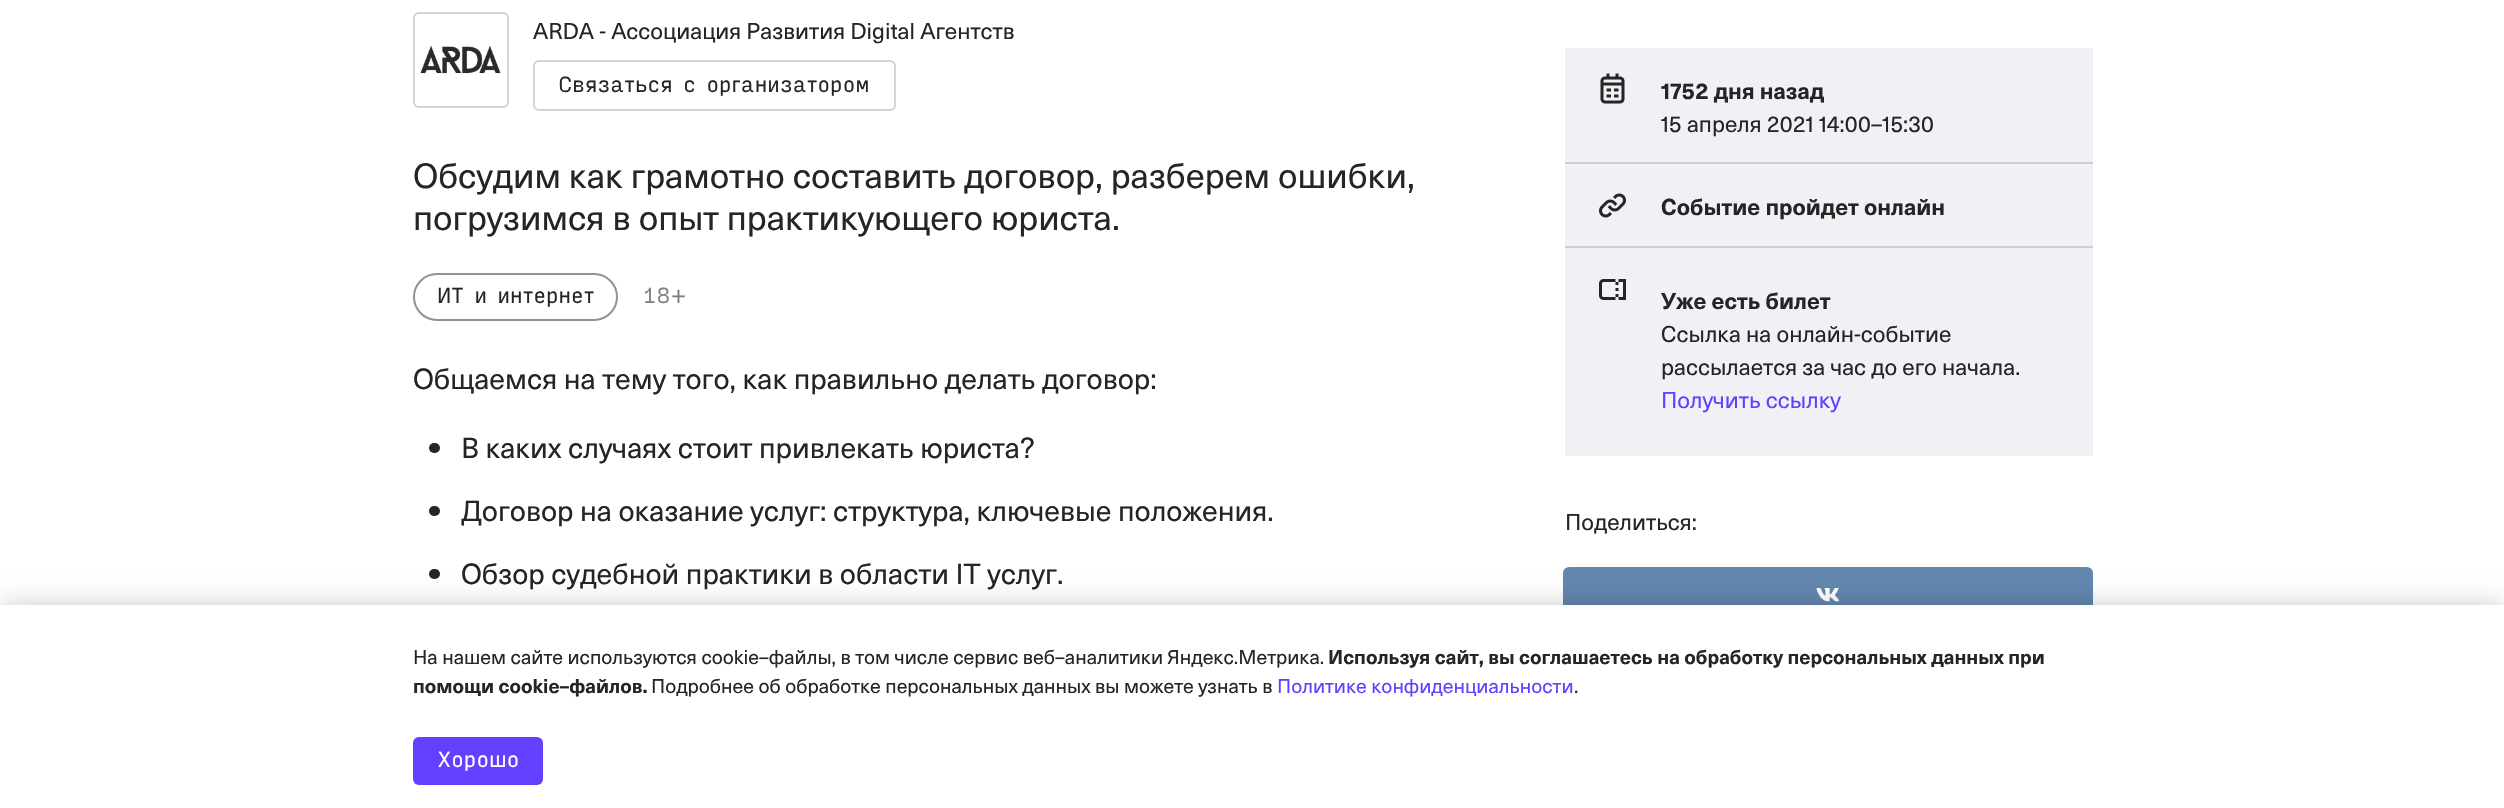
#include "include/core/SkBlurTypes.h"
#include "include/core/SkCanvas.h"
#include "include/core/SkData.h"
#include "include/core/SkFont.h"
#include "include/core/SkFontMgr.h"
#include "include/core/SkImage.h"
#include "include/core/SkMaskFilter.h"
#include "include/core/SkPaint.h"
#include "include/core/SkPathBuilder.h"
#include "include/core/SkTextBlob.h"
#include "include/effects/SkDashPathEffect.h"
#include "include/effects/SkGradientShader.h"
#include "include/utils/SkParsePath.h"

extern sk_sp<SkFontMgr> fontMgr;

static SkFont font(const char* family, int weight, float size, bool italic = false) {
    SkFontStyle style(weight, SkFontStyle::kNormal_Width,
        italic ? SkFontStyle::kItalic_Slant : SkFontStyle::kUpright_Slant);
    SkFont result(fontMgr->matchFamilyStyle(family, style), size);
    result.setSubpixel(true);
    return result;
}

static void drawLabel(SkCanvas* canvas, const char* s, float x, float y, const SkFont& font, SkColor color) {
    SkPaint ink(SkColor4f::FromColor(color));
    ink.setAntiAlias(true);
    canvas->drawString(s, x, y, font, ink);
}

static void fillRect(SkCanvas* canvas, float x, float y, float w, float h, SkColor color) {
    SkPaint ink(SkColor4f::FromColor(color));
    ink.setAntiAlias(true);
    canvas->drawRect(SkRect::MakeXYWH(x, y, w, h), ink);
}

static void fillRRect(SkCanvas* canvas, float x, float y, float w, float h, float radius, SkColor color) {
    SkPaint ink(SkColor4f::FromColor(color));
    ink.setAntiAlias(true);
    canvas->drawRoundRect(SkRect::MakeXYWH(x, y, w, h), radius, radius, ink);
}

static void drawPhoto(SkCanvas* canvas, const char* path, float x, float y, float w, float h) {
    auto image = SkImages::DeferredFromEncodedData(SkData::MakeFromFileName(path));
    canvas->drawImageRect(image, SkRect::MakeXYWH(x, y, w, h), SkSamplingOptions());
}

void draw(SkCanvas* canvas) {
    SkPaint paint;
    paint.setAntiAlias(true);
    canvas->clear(0xFFFFFFFF);
    drawPhoto(canvas, "assets/img1.png", 420, 45, 81, 29);
    paint.setStroke(true);
    paint.setStrokeWidth(2);
    paint.setColor(0xFFD3D3D3);
    canvas->drawRoundRect(SkRect::MakeXYWH(414, 13, 94, 94), 5, 5, paint);
    SkFont font1 = font("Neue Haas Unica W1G", 400, 22.5f);
    drawLabel(canvas, "ARDA - Ассоциация Развития Digital Агентств", 533, 39, font1, 0xFF252525);
    canvas->drawRoundRect(SkRect::MakeXYWH(534, 61, 361, 49), 5, 5, paint);
    SkFont font2 = font("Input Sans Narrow", 400, 21);
    drawLabel(canvas, "Связаться с организатором", 558, 92, font2, 0xFF252525);
    SkFont font3 = font("Neue Haas Unica W1G", 400, 34.5f);
    drawLabel(canvas, "Обсудим как грамотно составить договор, разберем ошибки,", 413, 188, font3, 0xFF252525);
    drawLabel(canvas, "погрузимся в опыт практикующего юриста.", 413, 230, font3, 0xFF252525);
    paint.setColor(0xFF929292);
    canvas->drawRoundRect(SkRect::MakeXYWH(414, 274, 203, 46), 23, 23, paint);
    drawLabel(canvas, "ИТ и интернет", 437, 303, font2, 0xFF252525);
    drawLabel(canvas, "18+", 642, 303, font2, 0xFF808080);
    SkFont font4 = font("Neue Haas Unica W1G", 400, 28.5f);
    drawLabel(canvas, "Общаемся на тему того, как правильно делать договор:", 413, 389, font4, 0xFF252525);
    fillRRect(canvas, 429, 443, 11, 10, 5, 0xFF252525);
    drawLabel(canvas, "В каких случаях стоит привлекать юриста?", 461, 458, font4, 0xFF252525);
    fillRRect(canvas, 429, 506, 11, 10, 5, 0xFF252525);
    drawLabel(canvas, "Договор на оказание услуг: структура, ключевые положения.", 461, 521, font4, 0xFF252525);
    fillRRect(canvas, 429, 569, 11, 10, 5, 0xFF252525);
    drawLabel(canvas, "Обзор судебной практики в области IT услуг.", 461, 584, font4, 0xFF252525);
    fillRect(canvas, 1565, 48, 528, 114, 0xFFF1F0F5);
    drawPhoto(canvas, "assets/img2.png", 1600, 73, 25, 31);
    SkFont font5 = font("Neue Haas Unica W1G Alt", 700, 22.5f);
    drawLabel(canvas, "1752 дня назад", 1661, 99, font5, 0xFF252525);
    SkFont font6 = font("Neue Haas Unica W1G Alt", 400, 22.5f);
    drawLabel(canvas, "15 апреля 2021 14:00–15:30", 1661, 132, font6, 0xFF252525);
    fillRect(canvas, 1565, 164, 528, 82, 0xFFF1F0F5);
    fillRect(canvas, 1565, 162, 528, 2, 0xFFCECDDE);
    drawPhoto(canvas, "assets/img3.png", 1599, 193, 27, 25);
    SkFont font7 = font("Neue Haas Unica W1G", 700, 22.5f);
    drawLabel(canvas, "Событие пройдет онлайн", 1661, 215, font7, 0xFF252525);
    fillRect(canvas, 1565, 248, 528, 208, 0xFFF1F0F5);
    fillRect(canvas, 1565, 246, 528, 2, 0xFFCECDDE);
    drawPhoto(canvas, "assets/img4.png", 1599, 279, 27, 21);
    drawLabel(canvas, "Уже есть билет", 1661, 309, font7, 0xFF252525);
    drawLabel(canvas, "Ссылка на онлайн-событие", 1661, 342, font1, 0xFF252525);
    drawLabel(canvas, "рассылается за час до его начала.", 1661, 375, font1, 0xFF252525);
    drawLabel(canvas, "Получить ссылку", 1661, 408, font1, 0xFF643FFF);
    drawLabel(canvas, "Поделиться:", 1565, 530, font1, 0xFF252525);
    fillRRect(canvas, 1563, 567, 530, 48, 6, 0xFF6287AE);
    drawPhoto(canvas, "assets/img5.png", 1816, 588, 23, 14);
    paint.setStroke(false);
    paint.setColor(0x33000000);
    paint.setMaskFilter(SkMaskFilter::MakeBlur(kNormal_SkBlurStyle, 12));
    canvas->drawRect(SkRect::MakeXYWH(0, 605, 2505, 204), paint);
    paint.setMaskFilter(nullptr);
    fillRect(canvas, 0, 605, 2504, 203, 0xFFFFFFFF);
    SkFont font8 = font("Neue Haas Unica W1G", 400, 19.5f);
    drawLabel(canvas, "На нашем сайте используются cookie–файлы, в том числе сервис веб–аналитики Яндекс.Метрика.", 413, 664, font8, 0xFF252525);
    SkFont font9 = font("Neue Haas Unica W1G", 700, 19.5f);
    drawLabel(canvas, "Используя сайт, вы соглашаетесь на обработку персональных данных при", 1328, 664, font9, 0xFF252525);
    drawLabel(canvas, "помощи cookie–файлов.", 413, 693, font9, 0xFF252525);
    drawLabel(canvas, "Подробнее об обработке персональных данных вы можете узнать в", 651, 693, font8, 0xFF252525);
    drawLabel(canvas, "Политике конфиденциальности", 1277, 693, font8, 0xFF643FFF);
    drawLabel(canvas, ".", 1574, 693, font8, 0xFF252525);
    fillRRect(canvas, 413, 737, 130, 48, 6, 0xFF643FFF);
    drawLabel(canvas, "Хорошо", 437, 767, font2, 0xFFFFFFFF);
}
